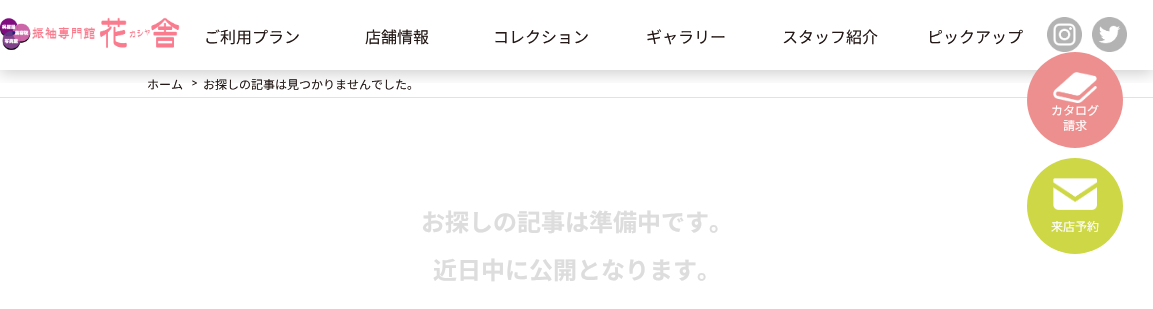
#include "include/core/SkBlurTypes.h"
#include "include/core/SkCanvas.h"
#include "include/core/SkData.h"
#include "include/core/SkFont.h"
#include "include/core/SkFontMgr.h"
#include "include/core/SkImage.h"
#include "include/core/SkMaskFilter.h"
#include "include/core/SkPaint.h"
#include "include/core/SkPathBuilder.h"
#include "include/core/SkTextBlob.h"
#include "include/effects/SkDashPathEffect.h"
#include "include/effects/SkGradientShader.h"
#include "include/utils/SkParsePath.h"

extern sk_sp<SkFontMgr> fontMgr;

static SkFont font(const char* family, int weight, float size, bool italic = false) {
    SkFontStyle style(weight, SkFontStyle::kNormal_Width,
        italic ? SkFontStyle::kItalic_Slant : SkFontStyle::kUpright_Slant);
    SkFont result(fontMgr->matchFamilyStyle(family, style), size);
    result.setSubpixel(true);
    return result;
}

static void drawLabel(SkCanvas* canvas, const char* s, float x, float y, const SkFont& font, SkColor color) {
    SkPaint ink(SkColor4f::FromColor(color));
    ink.setAntiAlias(true);
    canvas->drawString(s, x, y, font, ink);
}

static void fillRect(SkCanvas* canvas, float x, float y, float w, float h, SkColor color) {
    SkPaint ink(SkColor4f::FromColor(color));
    ink.setAntiAlias(true);
    canvas->drawRect(SkRect::MakeXYWH(x, y, w, h), ink);
}

static void drawPhoto(SkCanvas* canvas, const char* path, float x, float y, float w, float h) {
    auto image = SkImages::DeferredFromEncodedData(SkData::MakeFromFileName(path));
    canvas->drawImageRect(image, SkRect::MakeXYWH(x, y, w, h), SkSamplingOptions());
}

void draw(SkCanvas* canvas) {
    SkPaint paint;
    paint.setAntiAlias(true);
    canvas->clear(0xFFFFFFFF);
    canvas->save();
    canvas->clipRect(SkRect::MakeXYWH(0, 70, 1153, 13));
    paint.setColor(0x33000000);
    paint.setMaskFilter(SkMaskFilter::MakeBlur(kNormal_SkBlurStyle, 7.5f));
    canvas->drawRect(SkRect::MakeXYWH(0, 3, 1153, 70), paint);
    paint.setMaskFilter(nullptr);
    canvas->restore();
    drawPhoto(canvas, "assets/img1.png", 0, 17, 180, 33);
    SkFont font1 = font("Noto Sans JP", 400, 16);
    drawLabel(canvas, "ご利用プラン", 204, 43, font1, 0xFF231815);
    drawLabel(canvas, "店舗情報", 365, 43, font1, 0xFF231815);
    drawLabel(canvas, "コレクション", 493, 43, font1, 0xFF231815);
    drawLabel(canvas, "ギャラリー", 646, 43, font1, 0xFF231815);
    drawLabel(canvas, "スタッフ紹介", 782, 43, font1, 0xFF231815);
    drawLabel(canvas, "ピックアップ", 927, 43, font1, 0xFF231815);
    drawPhoto(canvas, "assets/img2.png", 1047, 17, 35, 35);
    drawPhoto(canvas, "assets/img3.png", 1092, 17, 35, 35);
    fillRect(canvas, 0, 97, 1153, 1, 0xFFE2E2E2);
    SkFont font2 = font("Noto Sans JP", 400, 12);
    drawLabel(canvas, "ホーム", 147, 89, font2, 0xFF231815);
    SkFont font3 = font("Lato", 400, 12);
    drawLabel(canvas, ">", 191, 87, font3, 0xFF231815);
    drawLabel(canvas, "お探しの記事は見つかりませんでした。", 203, 89, font2, 0xFF231815);
    paint.setColor(0xFFEE8F8F);
    canvas->drawCircle(1075, 100, 48, paint);
    drawPhoto(canvas, "assets/img4.png", 1053, 72, 44, 31);
    drawLabel(canvas, "カタログ", 1051, 115, font2, 0xFFFFFFFF);
    drawLabel(canvas, "請求", 1063, 130, font2, 0xFFFFFFFF);
    paint.setColor(0xFFCED745);
    canvas->drawCircle(1075, 206, 48, paint);
    drawPhoto(canvas, "assets/img5.png", 1053, 178, 44, 32);
    drawLabel(canvas, "来店予約", 1051, 231, font2, 0xFFFFFFFF);
    SkFont font4 = font("Noto Sans JP", 700, 24);
    drawLabel(canvas, "お探しの記事は準備中です。", 421, 231, font4, 0xFFDDDDDD);
    drawLabel(canvas, "近日中に公開となります。", 433, 279, font4, 0xFFDDDDDD);
}
